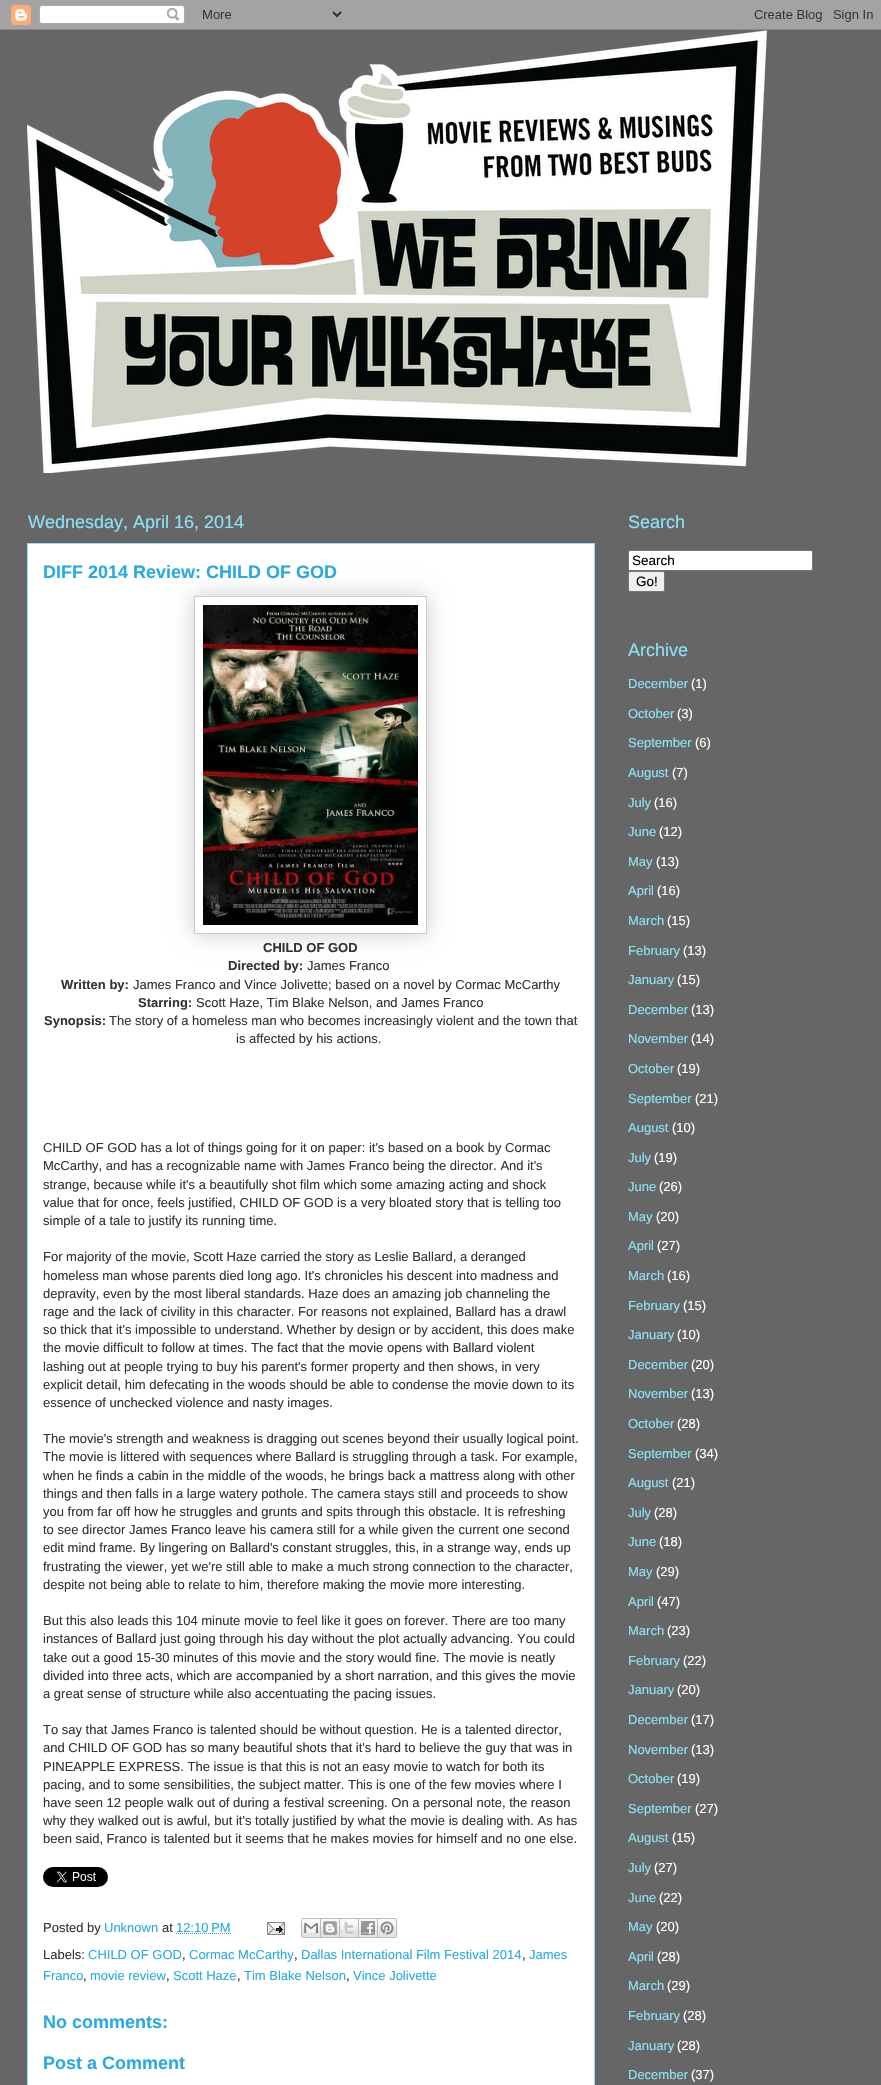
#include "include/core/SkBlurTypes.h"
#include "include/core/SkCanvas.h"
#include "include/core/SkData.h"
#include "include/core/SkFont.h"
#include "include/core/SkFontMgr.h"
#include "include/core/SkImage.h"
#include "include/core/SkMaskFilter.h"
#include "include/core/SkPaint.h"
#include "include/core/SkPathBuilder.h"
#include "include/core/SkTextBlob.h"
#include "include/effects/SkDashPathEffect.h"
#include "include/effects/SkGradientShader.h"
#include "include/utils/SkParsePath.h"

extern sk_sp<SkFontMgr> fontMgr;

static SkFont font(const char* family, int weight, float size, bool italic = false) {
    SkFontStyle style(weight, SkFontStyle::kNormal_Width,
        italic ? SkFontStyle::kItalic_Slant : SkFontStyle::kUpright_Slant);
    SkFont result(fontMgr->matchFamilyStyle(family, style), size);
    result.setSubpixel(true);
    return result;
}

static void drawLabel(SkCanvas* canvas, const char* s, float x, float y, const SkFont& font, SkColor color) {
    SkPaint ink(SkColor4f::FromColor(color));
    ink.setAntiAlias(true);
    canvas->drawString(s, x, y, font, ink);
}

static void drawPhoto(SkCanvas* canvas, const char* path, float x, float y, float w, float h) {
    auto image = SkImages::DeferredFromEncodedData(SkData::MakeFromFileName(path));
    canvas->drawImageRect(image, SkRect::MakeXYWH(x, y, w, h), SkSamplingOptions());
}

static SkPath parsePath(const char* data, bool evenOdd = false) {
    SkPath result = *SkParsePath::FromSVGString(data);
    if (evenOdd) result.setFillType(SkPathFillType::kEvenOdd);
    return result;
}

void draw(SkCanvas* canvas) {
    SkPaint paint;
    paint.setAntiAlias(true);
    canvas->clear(0xFF666666);
    drawPhoto(canvas, "assets/img1.png", 0, 0, 881, 30);
    drawPhoto(canvas, "assets/img2.png", 27, 30, 740, 443);
    paint.setColor(0xFFFFFFFF);
    canvas->drawRect(SkRect::MakeXYWH(27.5f, 543.5f, 567, 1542), paint);
    paint.setStroke(true);
    paint.setStrokeWidth(1);
    paint.setColor(0xFF8CE1F5);
    canvas->drawRect(SkRect::MakeXYWH(27.5f, 543.5f, 567, 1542), paint);
    SkFont font1 = font("Liberation Sans", 400, 18);
    drawLabel(canvas, "Wednesday, April 16, 2014", 28, 528, font1, 0xFF8CE1F5);
    SkFont font2 = font("Liberation Sans", 700, 18);
    drawLabel(canvas, "DIFF 2014 Review: CHILD OF GOD", 43, 578, font2, 0xFF29AAE1);
    canvas->save();
    canvas->clipPath(parsePath("M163 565H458V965H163ZM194 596H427V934H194Z", true), true);
    paint.setStroke(false);
    paint.setColor(0x33000000);
    paint.setMaskFilter(SkMaskFilter::MakeBlur(kNormal_SkBlurStyle, 10));
    canvas->drawRect(SkRect::MakeXYWH(194, 596, 233, 338), paint);
    paint.setMaskFilter(nullptr);
    canvas->restore();
    paint.setStroke(true);
    paint.setColor(0xFFCCCCCC);
    canvas->drawRect(SkRect::MakeXYWH(194.5f, 596.5f, 232, 337), paint);
    drawPhoto(canvas, "assets/img3.png", 203, 605, 215, 320);
    SkFont font3 = font("Liberation Sans", 700, 13);
    drawLabel(canvas, "CHILD OF GOD", 263, 952, font3, 0xFF333333);
    drawLabel(canvas, "Directed by:", 228, 970, font3, 0xFF333333);
    SkFont font4 = font("Liberation Sans", 400, 13);
    drawLabel(canvas, "James Franco", 307, 970, font4, 0xFF333333);
    drawLabel(canvas, "Written by:", 61, 989, font3, 0xFF333333);
    drawLabel(canvas, "James Franco and Vince Jolivette; based on a novel by Cormac McCarthy", 133, 989, font4, 0xFF333333);
    drawLabel(canvas, "Starring:", 138, 1007, font3, 0xFF333333);
    drawLabel(canvas, "Scott Haze, Tim Blake Nelson, and James Franco", 196, 1007, font4, 0xFF333333);
    drawLabel(canvas, "Synopsis:", 44, 1025, font3, 0xFF333333);
    drawLabel(canvas, "The story of a homeless man who becomes increasingly violent and the town that", 109, 1025, font4, 0xFF333333);
    drawLabel(canvas, "is affected by his actions.", 236, 1043, font4, 0xFF333333);
    drawLabel(canvas, "CHILD OF GOD has a lot of things going for it on paper: it's based on a book by Cormac", 43, 1152, font4, 0xFF333333);
    drawLabel(canvas, "McCarthy, and has a recognizable name with James Franco being the director. And it's", 43, 1170, font4, 0xFF333333);
    drawLabel(canvas, "strange, because while it's a beautifully shot film which some amazing acting and shock", 43, 1189, font4, 0xFF333333);
    drawLabel(canvas, "value that for once, feels justified, CHILD OF GOD is a very bloated story that is telling too", 43, 1207, font4, 0xFF333333);
    drawLabel(canvas, "simple of a tale to justify its running time.", 43, 1225, font4, 0xFF333333);
    drawLabel(canvas, "For majority of the movie, Scott Haze carried the story as Leslie Ballard, a deranged", 43, 1261, font4, 0xFF333333);
    drawLabel(canvas, "homeless man whose parents died long ago. It's chronicles his descent into madness and", 43, 1280, font4, 0xFF333333);
    drawLabel(canvas, "depravity, even by the most liberal standards. Haze does an amazing job channeling the", 43, 1298, font4, 0xFF333333);
    drawLabel(canvas, "rage and the lack of civility in this character. For reasons not explained, Ballard has a drawl", 43, 1316, font4, 0xFF333333);
    drawLabel(canvas, "so thick that it's impossible to understand. Whether by design or by accident, this does make", 43, 1334, font4, 0xFF333333);
    drawLabel(canvas, "the movie difficult to follow at times. The fact that the movie opens with Ballard violent", 43, 1352, font4, 0xFF333333);
    drawLabel(canvas, "lashing out at people trying to buy his parent's former property and then shows, in very", 43, 1371, font4, 0xFF333333);
    drawLabel(canvas, "explicit detail, him defecating in the woods should be able to condense the movie down to its", 43, 1389, font4, 0xFF333333);
    drawLabel(canvas, "essence of unchecked violence and nasty images.", 43, 1407, font4, 0xFF333333);
    drawLabel(canvas, "The movie's strength and weakness is dragging out scenes beyond their usually logical point.", 43, 1443, font4, 0xFF333333);
    drawLabel(canvas, "The movie is littered with sequences where Ballard is struggling through a task. For example,", 43, 1461, font4, 0xFF333333);
    drawLabel(canvas, "when he finds a cabin in the middle of the woods, he brings back a mattress along with other", 43, 1480, font4, 0xFF333333);
    drawLabel(canvas, "things and then falls in a large watery pothole. The camera stays still and proceeds to show", 43, 1498, font4, 0xFF333333);
    drawLabel(canvas, "you from far off how he struggles and grunts and spits through this obstacle. It is refreshing", 43, 1516, font4, 0xFF333333);
    drawLabel(canvas, "to see director James Franco leave his camera still for a while given the current one second", 43, 1534, font4, 0xFF333333);
    drawLabel(canvas, "edit mind frame. By lingering on Ballard's constant struggles, this, in a strange way, ends up", 43, 1552, font4, 0xFF333333);
    drawLabel(canvas, "frustrating the viewer, yet we're still able to make a much strong connection to the character,", 43, 1571, font4, 0xFF333333);
    drawLabel(canvas, "despite not being able to relate to him, therefore making the movie more interesting.", 43, 1589, font4, 0xFF333333);
    drawLabel(canvas, "But this also leads this 104 minute movie to feel like it goes on forever. There are too many", 43, 1625, font4, 0xFF333333);
    drawLabel(canvas, "instances of Ballard just going through his day without the plot actually advancing. You could", 43, 1643, font4, 0xFF333333);
    drawLabel(canvas, "take out a good 15-30 minutes of this movie and the story would fine. The movie is neatly", 43, 1662, font4, 0xFF333333);
    drawLabel(canvas, "divided into three acts, which are accompanied by a short narration, and this gives the movie", 43, 1680, font4, 0xFF333333);
    drawLabel(canvas, "a great sense of structure while also accentuating the pacing issues.", 43, 1698, font4, 0xFF333333);
    drawLabel(canvas, "To say that James Franco is talented should be without question. He is a talented director,", 43, 1734, font4, 0xFF333333);
    drawLabel(canvas, "and CHILD OF GOD has so many beautiful shots that it's hard to believe the guy that was in", 43, 1752, font4, 0xFF333333);
    drawLabel(canvas, "PINEAPPLE EXPRESS. The issue is that this is not an easy movie to watch for both its", 43, 1771, font4, 0xFF333333);
    drawLabel(canvas, "pacing, and to some sensibilities, the subject matter. This is one of the few movies where I", 43, 1789, font4, 0xFF333333);
    drawLabel(canvas, "have seen 12 people walk out of during a festival screening. On a personal note, the reason", 43, 1807, font4, 0xFF333333);
    drawLabel(canvas, "why they walked out is awful, but it's totally justified by what the movie is dealing with. As has", 43, 1825, font4, 0xFF333333);
    drawLabel(canvas, "been said, Franco is talented but it seems that he makes movies for himself and no one else.", 43, 1843, font4, 0xFF333333);
    drawPhoto(canvas, "assets/img4.png", 43, 1867, 65, 20);
    drawLabel(canvas, "Posted by", 43, 1932, font4, 0xFF333333);
    drawLabel(canvas, "Unknown", 104, 1932, font4, 0xFF29AAE1);
    drawLabel(canvas, "at", 162, 1932, font4, 0xFF333333);
    drawLabel(canvas, "12:10 PM", 176, 1932, font4, 0xFF29AAE1);
    paint.setColor(0xFF29AAE1);
    paint.setPathEffect(SkDashPathEffect::Make({{1, 1}}, 0));
    canvas->drawPath(parsePath("M176 1933.5H231"), paint);
    paint.setPathEffect(nullptr);
    drawPhoto(canvas, "assets/img5.png", 267, 1922, 18, 13);
    drawPhoto(canvas, "assets/img6.png", 301, 1918, 20, 20);
    drawPhoto(canvas, "assets/img7.png", 321, 1918, 19, 20);
    drawPhoto(canvas, "assets/img8.png", 340, 1918, 19, 20);
    drawPhoto(canvas, "assets/img9.png", 359, 1918, 19, 20);
    drawPhoto(canvas, "assets/img10.png", 378, 1918, 19, 20);
    drawLabel(canvas, "Labels:", 43, 1959, font4, 0xFF333333);
    drawLabel(canvas, "CHILD OF GOD", 88, 1959, font4, 0xFF29AAE1);
    drawLabel(canvas, ",", 182, 1959, font4, 0xFF333333);
    drawLabel(canvas, "Cormac McCarthy", 189, 1959, font4, 0xFF29AAE1);
    drawLabel(canvas, ",", 294, 1959, font4, 0xFF333333);
    drawLabel(canvas, "Dallas International Film Festival 2014", 301, 1959, font4, 0xFF29AAE1);
    drawLabel(canvas, ",", 522, 1959, font4, 0xFF333333);
    drawLabel(canvas, "James", 529, 1959, font4, 0xFF29AAE1);
    drawLabel(canvas, "Franco", 43, 1980, font4, 0xFF29AAE1);
    drawLabel(canvas, ",", 83, 1980, font4, 0xFF333333);
    drawLabel(canvas, "movie review", 90, 1980, font4, 0xFF29AAE1);
    drawLabel(canvas, ",", 166, 1980, font4, 0xFF333333);
    drawLabel(canvas, "Scott Haze", 173, 1980, font4, 0xFF29AAE1);
    drawLabel(canvas, ",", 237, 1980, font4, 0xFF333333);
    drawLabel(canvas, "Tim Blake Nelson", 244, 1980, font4, 0xFF29AAE1);
    drawLabel(canvas, ",", 346, 1980, font4, 0xFF333333);
    drawLabel(canvas, "Vince Jolivette", 353, 1980, font4, 0xFF29AAE1);
    drawLabel(canvas, "No comments:", 43, 2028, font2, 0xFF29AAE1);
    drawLabel(canvas, "Post a Comment", 43, 2069, font2, 0xFF29AAE1);
    drawLabel(canvas, "Search", 628, 528, font1, 0xFF8CE1F5);
    paint.setStroke(false);
    paint.setColor(0xFFFFFFFF);
    canvas->drawRoundRect(SkRect::MakeXYWH(628.5f, 550.5f, 184, 20), 1.5f, 1.5f, paint);
    paint.setStroke(true);
    paint.setColor(0xFF767676);
    canvas->drawRoundRect(SkRect::MakeXYWH(628.5f, 550.5f, 184, 20), 1.5f, 1.5f, paint);
    SkFont font5 = font("Liberation Sans", 400, 13.5f);
    drawLabel(canvas, "Search", 632, 565, font5, 0xFF000000);
    paint.setStroke(false);
    paint.setColor(0xFFEFEFEF);
    canvas->drawRoundRect(SkRect::MakeXYWH(628.5f, 571.5f, 36, 20), 1.5f, 1.5f, paint);
    paint.setStroke(true);
    paint.setColor(0xFF767676);
    canvas->drawRoundRect(SkRect::MakeXYWH(628.5f, 571.5f, 36, 20), 1.5f, 1.5f, paint);
    drawLabel(canvas, "Go!", 636, 586, font5, 0xFF000000);
    drawLabel(canvas, "Archive", 628, 656, font1, 0xFF8CE1F5);
    drawLabel(canvas, "December", 628, 688, font4, 0xFF8CE1F5);
    drawLabel(canvas, "(1)", 691, 688, font4, 0xFFFFFFFF);
    drawLabel(canvas, "October", 628, 718, font4, 0xFF8CE1F5);
    drawLabel(canvas, "(3)", 677, 718, font4, 0xFFFFFFFF);
    drawLabel(canvas, "September", 628, 747, font4, 0xFF8CE1F5);
    drawLabel(canvas, "(6)", 695, 747, font4, 0xFFFFFFFF);
    drawLabel(canvas, "August", 628, 777, font4, 0xFF8CE1F5);
    drawLabel(canvas, "(7)", 672, 777, font4, 0xFFFFFFFF);
    drawLabel(canvas, "July", 628, 807, font4, 0xFF8CE1F5);
    drawLabel(canvas, "(16)", 654, 807, font4, 0xFFFFFFFF);
    drawLabel(canvas, "June", 628, 836, font4, 0xFF8CE1F5);
    drawLabel(canvas, "(12)", 659, 836, font4, 0xFFFFFFFF);
    drawLabel(canvas, "May", 628, 866, font4, 0xFF8CE1F5);
    drawLabel(canvas, "(13)", 656, 866, font4, 0xFFFFFFFF);
    drawLabel(canvas, "April", 628, 895, font4, 0xFF8CE1F5);
    drawLabel(canvas, "(16)", 657, 895, font4, 0xFFFFFFFF);
    drawLabel(canvas, "March", 628, 925, font4, 0xFF8CE1F5);
    drawLabel(canvas, "(15)", 667, 925, font4, 0xFFFFFFFF);
    drawLabel(canvas, "February", 628, 955, font4, 0xFF8CE1F5);
    drawLabel(canvas, "(13)", 683, 955, font4, 0xFFFFFFFF);
    drawLabel(canvas, "January", 628, 984, font4, 0xFF8CE1F5);
    drawLabel(canvas, "(15)", 677, 984, font4, 0xFFFFFFFF);
    drawLabel(canvas, "December", 628, 1014, font4, 0xFF8CE1F5);
    drawLabel(canvas, "(13)", 691, 1014, font4, 0xFFFFFFFF);
    drawLabel(canvas, "November", 628, 1043, font4, 0xFF8CE1F5);
    drawLabel(canvas, "(14)", 691, 1043, font4, 0xFFFFFFFF);
    drawLabel(canvas, "October", 628, 1073, font4, 0xFF8CE1F5);
    drawLabel(canvas, "(19)", 677, 1073, font4, 0xFFFFFFFF);
    drawLabel(canvas, "September", 628, 1103, font4, 0xFF8CE1F5);
    drawLabel(canvas, "(21)", 695, 1103, font4, 0xFFFFFFFF);
    drawLabel(canvas, "August", 628, 1132, font4, 0xFF8CE1F5);
    drawLabel(canvas, "(10)", 672, 1132, font4, 0xFFFFFFFF);
    drawLabel(canvas, "July", 628, 1162, font4, 0xFF8CE1F5);
    drawLabel(canvas, "(19)", 654, 1162, font4, 0xFFFFFFFF);
    drawLabel(canvas, "June", 628, 1191, font4, 0xFF8CE1F5);
    drawLabel(canvas, "(26)", 659, 1191, font4, 0xFFFFFFFF);
    drawLabel(canvas, "May", 628, 1221, font4, 0xFF8CE1F5);
    drawLabel(canvas, "(20)", 656, 1221, font4, 0xFFFFFFFF);
    drawLabel(canvas, "April", 628, 1250, font4, 0xFF8CE1F5);
    drawLabel(canvas, "(27)", 657, 1250, font4, 0xFFFFFFFF);
    drawLabel(canvas, "March", 628, 1280, font4, 0xFF8CE1F5);
    drawLabel(canvas, "(16)", 667, 1280, font4, 0xFFFFFFFF);
    drawLabel(canvas, "February", 628, 1310, font4, 0xFF8CE1F5);
    drawLabel(canvas, "(15)", 683, 1310, font4, 0xFFFFFFFF);
    drawLabel(canvas, "January", 628, 1339, font4, 0xFF8CE1F5);
    drawLabel(canvas, "(10)", 677, 1339, font4, 0xFFFFFFFF);
    drawLabel(canvas, "December", 628, 1369, font4, 0xFF8CE1F5);
    drawLabel(canvas, "(20)", 691, 1369, font4, 0xFFFFFFFF);
    drawLabel(canvas, "November", 628, 1398, font4, 0xFF8CE1F5);
    drawLabel(canvas, "(13)", 691, 1398, font4, 0xFFFFFFFF);
    drawLabel(canvas, "October", 628, 1428, font4, 0xFF8CE1F5);
    drawLabel(canvas, "(28)", 677, 1428, font4, 0xFFFFFFFF);
    drawLabel(canvas, "September", 628, 1458, font4, 0xFF8CE1F5);
    drawLabel(canvas, "(34)", 695, 1458, font4, 0xFFFFFFFF);
    drawLabel(canvas, "August", 628, 1487, font4, 0xFF8CE1F5);
    drawLabel(canvas, "(21)", 672, 1487, font4, 0xFFFFFFFF);
    drawLabel(canvas, "July", 628, 1517, font4, 0xFF8CE1F5);
    drawLabel(canvas, "(28)", 654, 1517, font4, 0xFFFFFFFF);
    drawLabel(canvas, "June", 628, 1546, font4, 0xFF8CE1F5);
    drawLabel(canvas, "(18)", 659, 1546, font4, 0xFFFFFFFF);
    drawLabel(canvas, "May", 628, 1576, font4, 0xFF8CE1F5);
    drawLabel(canvas, "(29)", 656, 1576, font4, 0xFFFFFFFF);
    drawLabel(canvas, "April", 628, 1606, font4, 0xFF8CE1F5);
    drawLabel(canvas, "(47)", 657, 1606, font4, 0xFFFFFFFF);
    drawLabel(canvas, "March", 628, 1635, font4, 0xFF8CE1F5);
    drawLabel(canvas, "(23)", 667, 1635, font4, 0xFFFFFFFF);
    drawLabel(canvas, "February", 628, 1665, font4, 0xFF8CE1F5);
    drawLabel(canvas, "(22)", 683, 1665, font4, 0xFFFFFFFF);
    drawLabel(canvas, "January", 628, 1694, font4, 0xFF8CE1F5);
    drawLabel(canvas, "(20)", 677, 1694, font4, 0xFFFFFFFF);
    drawLabel(canvas, "December", 628, 1724, font4, 0xFF8CE1F5);
    drawLabel(canvas, "(17)", 691, 1724, font4, 0xFFFFFFFF);
    drawLabel(canvas, "November", 628, 1754, font4, 0xFF8CE1F5);
    drawLabel(canvas, "(13)", 691, 1754, font4, 0xFFFFFFFF);
    drawLabel(canvas, "October", 628, 1783, font4, 0xFF8CE1F5);
    drawLabel(canvas, "(19)", 677, 1783, font4, 0xFFFFFFFF);
    drawLabel(canvas, "September", 628, 1813, font4, 0xFF8CE1F5);
    drawLabel(canvas, "(27)", 695, 1813, font4, 0xFFFFFFFF);
    drawLabel(canvas, "August", 628, 1842, font4, 0xFF8CE1F5);
    drawLabel(canvas, "(15)", 672, 1842, font4, 0xFFFFFFFF);
    drawLabel(canvas, "July", 628, 1872, font4, 0xFF8CE1F5);
    drawLabel(canvas, "(27)", 654, 1872, font4, 0xFFFFFFFF);
    drawLabel(canvas, "June", 628, 1902, font4, 0xFF8CE1F5);
    drawLabel(canvas, "(22)", 659, 1902, font4, 0xFFFFFFFF);
    drawLabel(canvas, "May", 628, 1931, font4, 0xFF8CE1F5);
    drawLabel(canvas, "(20)", 656, 1931, font4, 0xFFFFFFFF);
    drawLabel(canvas, "April", 628, 1961, font4, 0xFF8CE1F5);
    drawLabel(canvas, "(28)", 657, 1961, font4, 0xFFFFFFFF);
    drawLabel(canvas, "March", 628, 1990, font4, 0xFF8CE1F5);
    drawLabel(canvas, "(29)", 667, 1990, font4, 0xFFFFFFFF);
    drawLabel(canvas, "February", 628, 2020, font4, 0xFF8CE1F5);
    drawLabel(canvas, "(28)", 683, 2020, font4, 0xFFFFFFFF);
    drawLabel(canvas, "January", 628, 2050, font4, 0xFF8CE1F5);
    drawLabel(canvas, "(28)", 677, 2050, font4, 0xFFFFFFFF);
    drawLabel(canvas, "December", 628, 2079, font4, 0xFF8CE1F5);
    drawLabel(canvas, "(37)", 691, 2079, font4, 0xFFFFFFFF);
}
